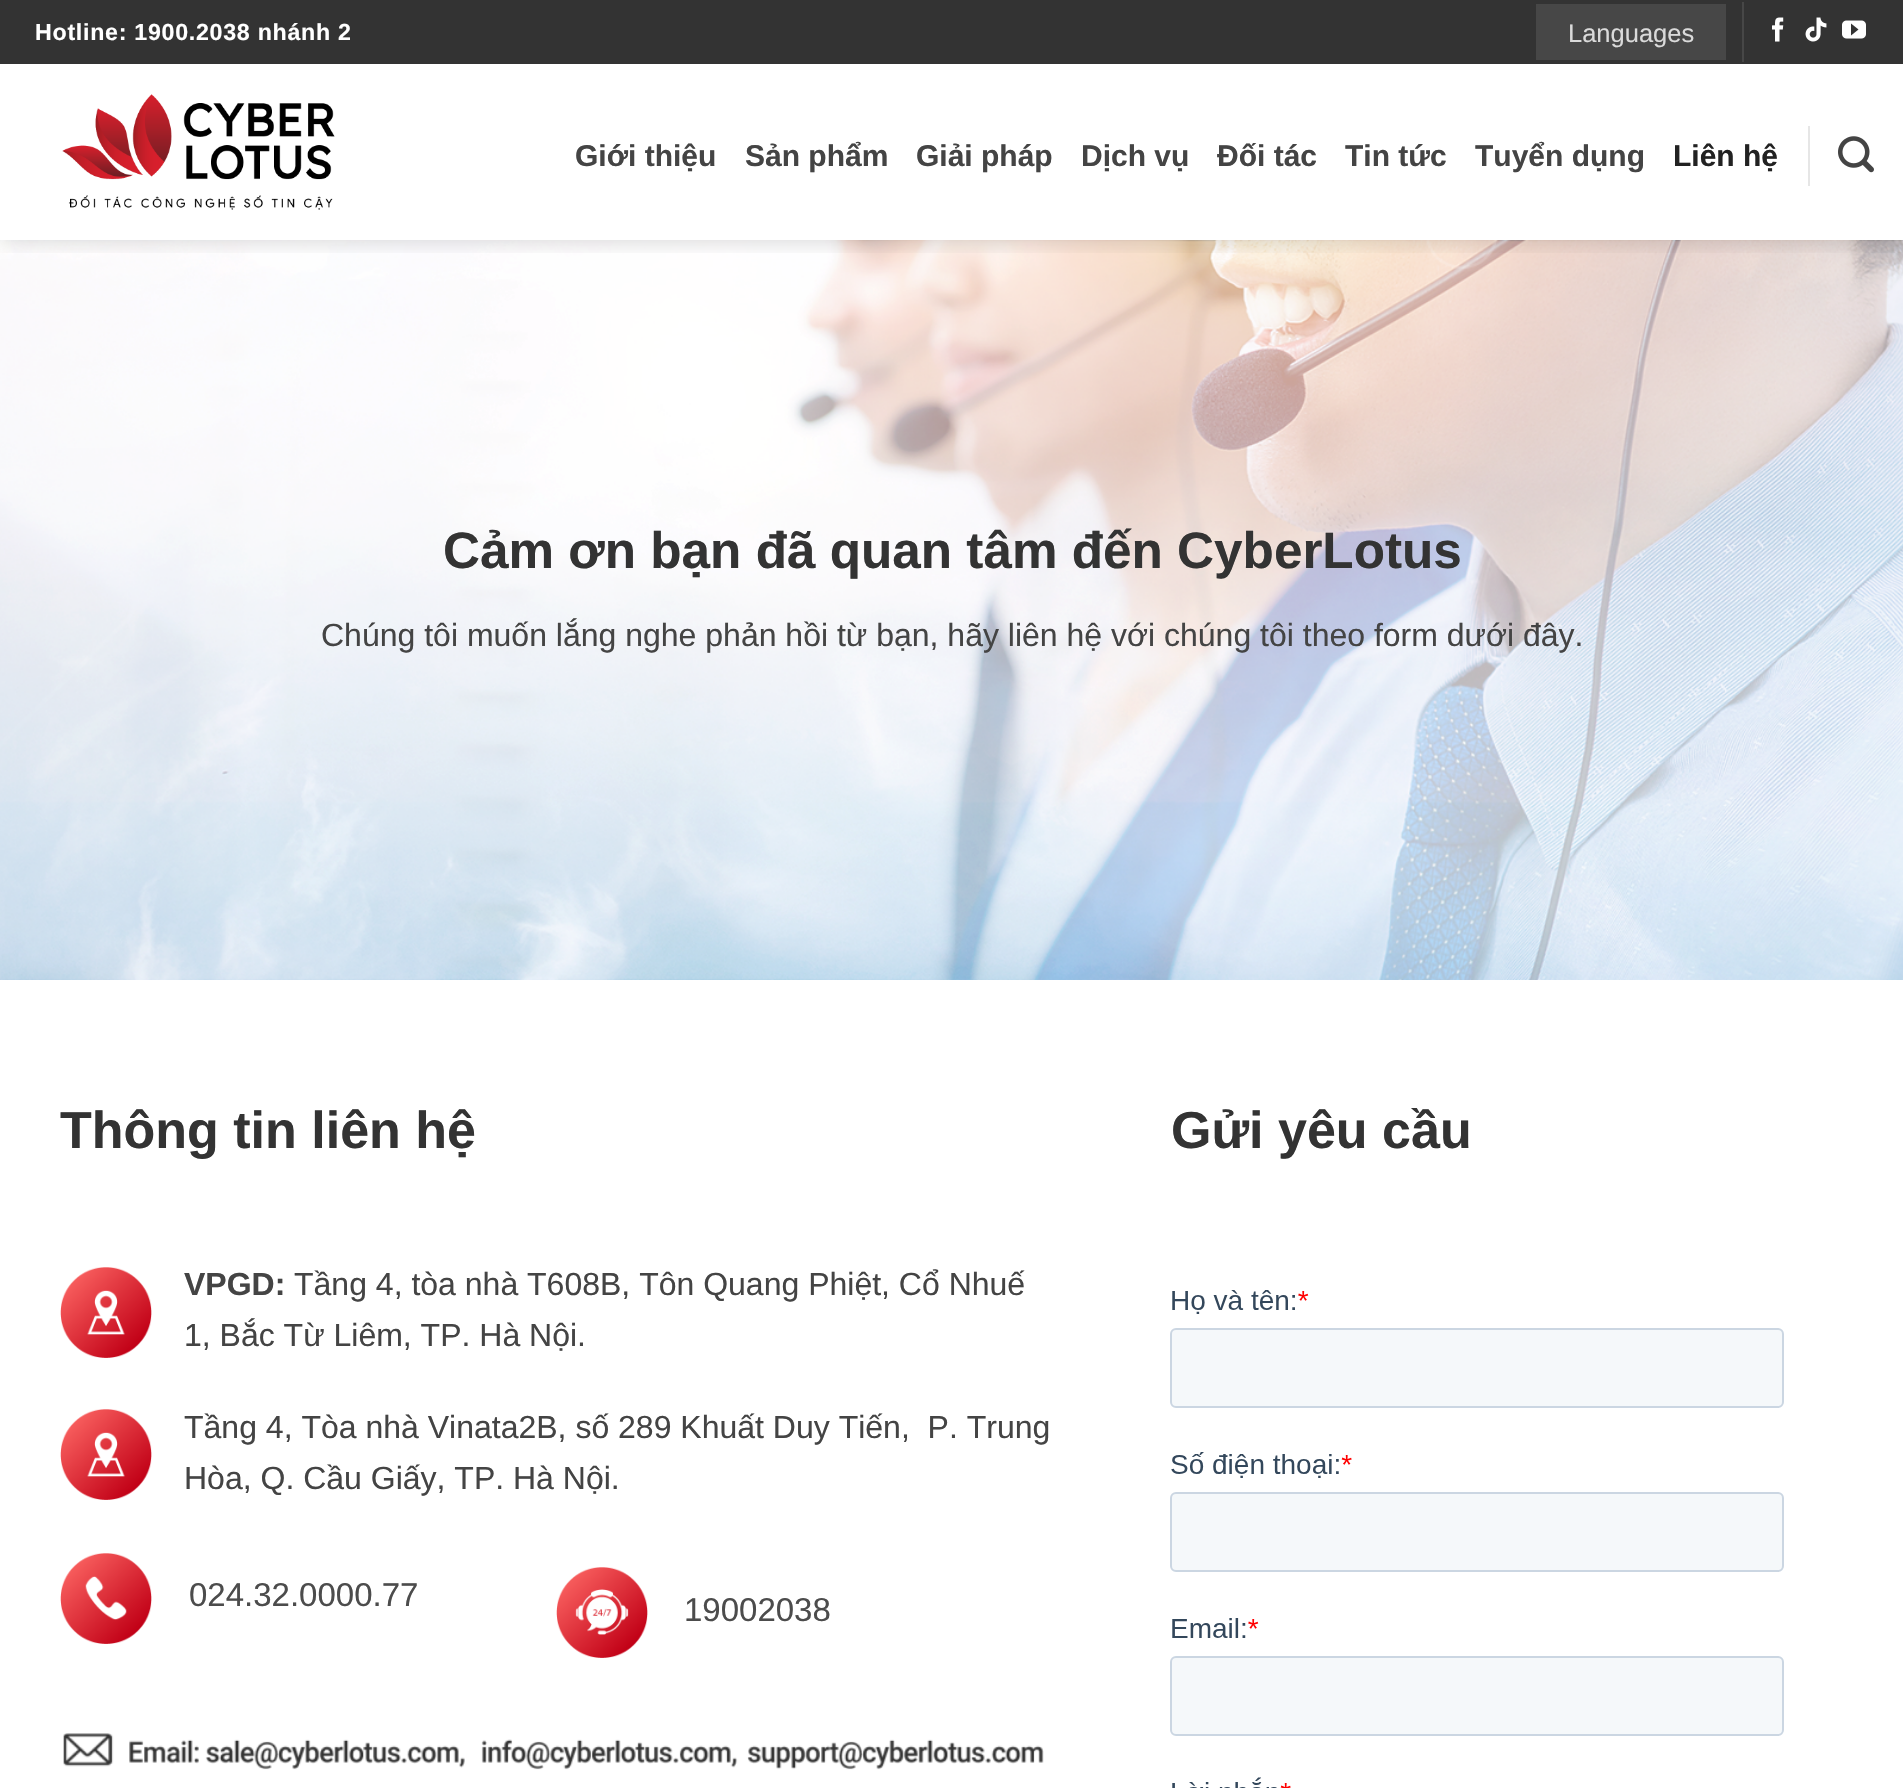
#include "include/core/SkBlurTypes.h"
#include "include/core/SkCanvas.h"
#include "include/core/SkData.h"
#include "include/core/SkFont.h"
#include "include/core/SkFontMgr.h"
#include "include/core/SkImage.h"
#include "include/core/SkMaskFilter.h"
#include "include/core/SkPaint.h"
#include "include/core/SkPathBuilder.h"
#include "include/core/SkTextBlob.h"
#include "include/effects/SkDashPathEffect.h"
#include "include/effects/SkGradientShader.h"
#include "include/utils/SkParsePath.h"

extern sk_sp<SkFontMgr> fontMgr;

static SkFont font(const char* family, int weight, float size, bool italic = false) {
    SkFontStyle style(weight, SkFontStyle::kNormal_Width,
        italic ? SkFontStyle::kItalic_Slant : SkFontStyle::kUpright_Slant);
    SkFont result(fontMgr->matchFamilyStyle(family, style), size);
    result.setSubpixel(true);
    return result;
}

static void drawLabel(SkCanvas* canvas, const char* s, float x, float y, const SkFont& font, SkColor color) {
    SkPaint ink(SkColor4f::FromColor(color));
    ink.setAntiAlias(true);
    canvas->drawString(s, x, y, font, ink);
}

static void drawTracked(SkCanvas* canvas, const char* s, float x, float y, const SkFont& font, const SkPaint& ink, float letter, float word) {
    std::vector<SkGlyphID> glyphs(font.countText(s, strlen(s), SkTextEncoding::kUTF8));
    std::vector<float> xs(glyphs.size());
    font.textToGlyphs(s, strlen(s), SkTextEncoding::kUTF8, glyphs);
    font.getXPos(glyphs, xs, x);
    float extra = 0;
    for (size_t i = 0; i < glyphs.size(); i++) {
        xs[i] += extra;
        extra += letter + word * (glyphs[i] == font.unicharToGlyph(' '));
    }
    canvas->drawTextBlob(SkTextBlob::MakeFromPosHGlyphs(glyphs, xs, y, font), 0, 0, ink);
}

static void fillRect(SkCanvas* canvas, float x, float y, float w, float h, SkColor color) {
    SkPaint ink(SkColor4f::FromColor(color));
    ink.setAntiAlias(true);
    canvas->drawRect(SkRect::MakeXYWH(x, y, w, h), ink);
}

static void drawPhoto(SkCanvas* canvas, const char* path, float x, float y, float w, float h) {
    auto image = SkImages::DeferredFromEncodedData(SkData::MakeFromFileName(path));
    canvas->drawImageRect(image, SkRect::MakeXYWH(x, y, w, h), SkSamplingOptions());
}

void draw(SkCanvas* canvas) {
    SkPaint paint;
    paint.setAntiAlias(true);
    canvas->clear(0xFFFFFFFF);
    drawPhoto(canvas, "assets/img6.png", 0, 240, 1903, 740);
    canvas->save();
    canvas->clipRect(SkRect::MakeXYWH(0, 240, 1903, 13));
    paint.setColor(0x26000000);
    paint.setMaskFilter(SkMaskFilter::MakeBlur(kNormal_SkBlurStyle, 10));
    canvas->drawRect(SkRect::MakeXYWH(2, 2, 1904, 240), paint);
    paint.setMaskFilter(nullptr);
    canvas->restore();
    fillRect(canvas, 0, 0, 1903, 64, 0xFF333333);
    SkFont font1 = font("Liberation Sans", 700, 23.25f);
    paint.setColor(0xFFFFFFFF);
    drawTracked(canvas, "Hotline: 1900.2038 nhánh 2", 35, 40, font1, paint, 0.7f, 0);
    fillRect(canvas, 1536, 4, 190, 56, 0xFF474747);
    SkFont font2 = font("Liberation Sans", 400, 25.5f);
    drawLabel(canvas, "Languages", 1568, 42, font2, 0xFFDADADA);
    fillRect(canvas, 1742, 2, 2, 60, 0xFF474747);
    drawPhoto(canvas, "assets/img1.png", 1772, 17, 12, 25);
    drawPhoto(canvas, "assets/img2.png", 1805, 17, 22, 25);
    drawPhoto(canvas, "assets/img3.png", 1842, 20, 24, 19);
    drawPhoto(canvas, "assets/img4.png", 62, 94, 273, 116);
    SkFont font3 = font("Liberation Sans", 700, 30);
    drawLabel(canvas, "Giới thiệu", 575, 166, font3, 0xFF444444);
    drawLabel(canvas, "Sản phẩm", 745, 166, font3, 0xFF444444);
    drawLabel(canvas, "Giải pháp", 916, 166, font3, 0xFF444444);
    drawLabel(canvas, "Dịch vụ", 1081, 166, font3, 0xFF444444);
    drawLabel(canvas, "Đối tác", 1217, 166, font3, 0xFF444444);
    drawLabel(canvas, "Tin tức", 1345, 166, font3, 0xFF444444);
    drawLabel(canvas, "Tuyển dụng", 1475, 166, font3, 0xFF444444);
    drawLabel(canvas, "Liên hệ", 1673, 166, font3, 0xFF222222);
    fillRect(canvas, 1808, 126, 2, 60, 0xFFE6E6E6);
    drawPhoto(canvas, "assets/img5.png", 1838, 136, 36, 37);
    SkFont font4 = font("Liberation Sans", 700, 51.25f);
    drawLabel(canvas, "Cảm ơn bạn đã quan tâm đến CyberLotus", 443, 568, font4, 0xFF333333);
    SkFont font5 = font("Liberation Sans", 400, 32);
    drawLabel(canvas, "Chúng tôi muốn lắng nghe phản hồi từ bạn, hãy liên hệ với chúng tôi theo form dưới đây.", 321, 646, font5, 0xFF444444);
    SkFont font6 = font("Liberation Sans", 700, 52);
    drawLabel(canvas, "Thông tin liên hệ", 60, 1148, font6, 0xFF333333);
    drawPhoto(canvas, "assets/img7.png", 60, 1267, 92, 91);
    SkFont font7 = font("Liberation Sans", 700, 32);
    drawLabel(canvas, "VPGD:", 184, 1295, font7, 0xFF444444);
    drawLabel(canvas, "Tầng 4, tòa nhà T608B, Tôn Quang Phiệt, Cổ Nhuế", 294, 1295, font5, 0xFF444444);
    drawLabel(canvas, "1, Bắc Từ Liêm, TP. Hà Nội.", 184, 1346, font5, 0xFF444444);
    drawPhoto(canvas, "assets/img7.png", 60, 1409, 92, 91);
    drawLabel(canvas, "Tầng 4, Tòa nhà Vinata2B, số 289 Khuất Duy Tiến,  P. Trung", 184, 1438, font5, 0xFF444444);
    drawLabel(canvas, "Hòa, Q. Cầu Giấy, TP. Hà Nội.", 184, 1489, font5, 0xFF444444);
    drawPhoto(canvas, "assets/img8.png", 60, 1553, 92, 91);
    SkFont font8 = font("Liberation Sans", 400, 33);
    drawLabel(canvas, "024.32.0000.77", 189, 1606, font8, 0xFF4C4C4C);
    drawPhoto(canvas, "assets/img9.png", 556, 1567, 92, 91);
    drawLabel(canvas, "19002038", 684, 1621, font8, 0xFF4C4C4C);
    drawPhoto(canvas, "assets/img10.png", 63, 1733, 981, 37);
    drawLabel(canvas, "Gửi yêu cầu", 1171, 1148, font6, 0xFF333333);
    drawPhoto(canvas, "assets/img11.png", 1170, 1290, 614, 498);
}
